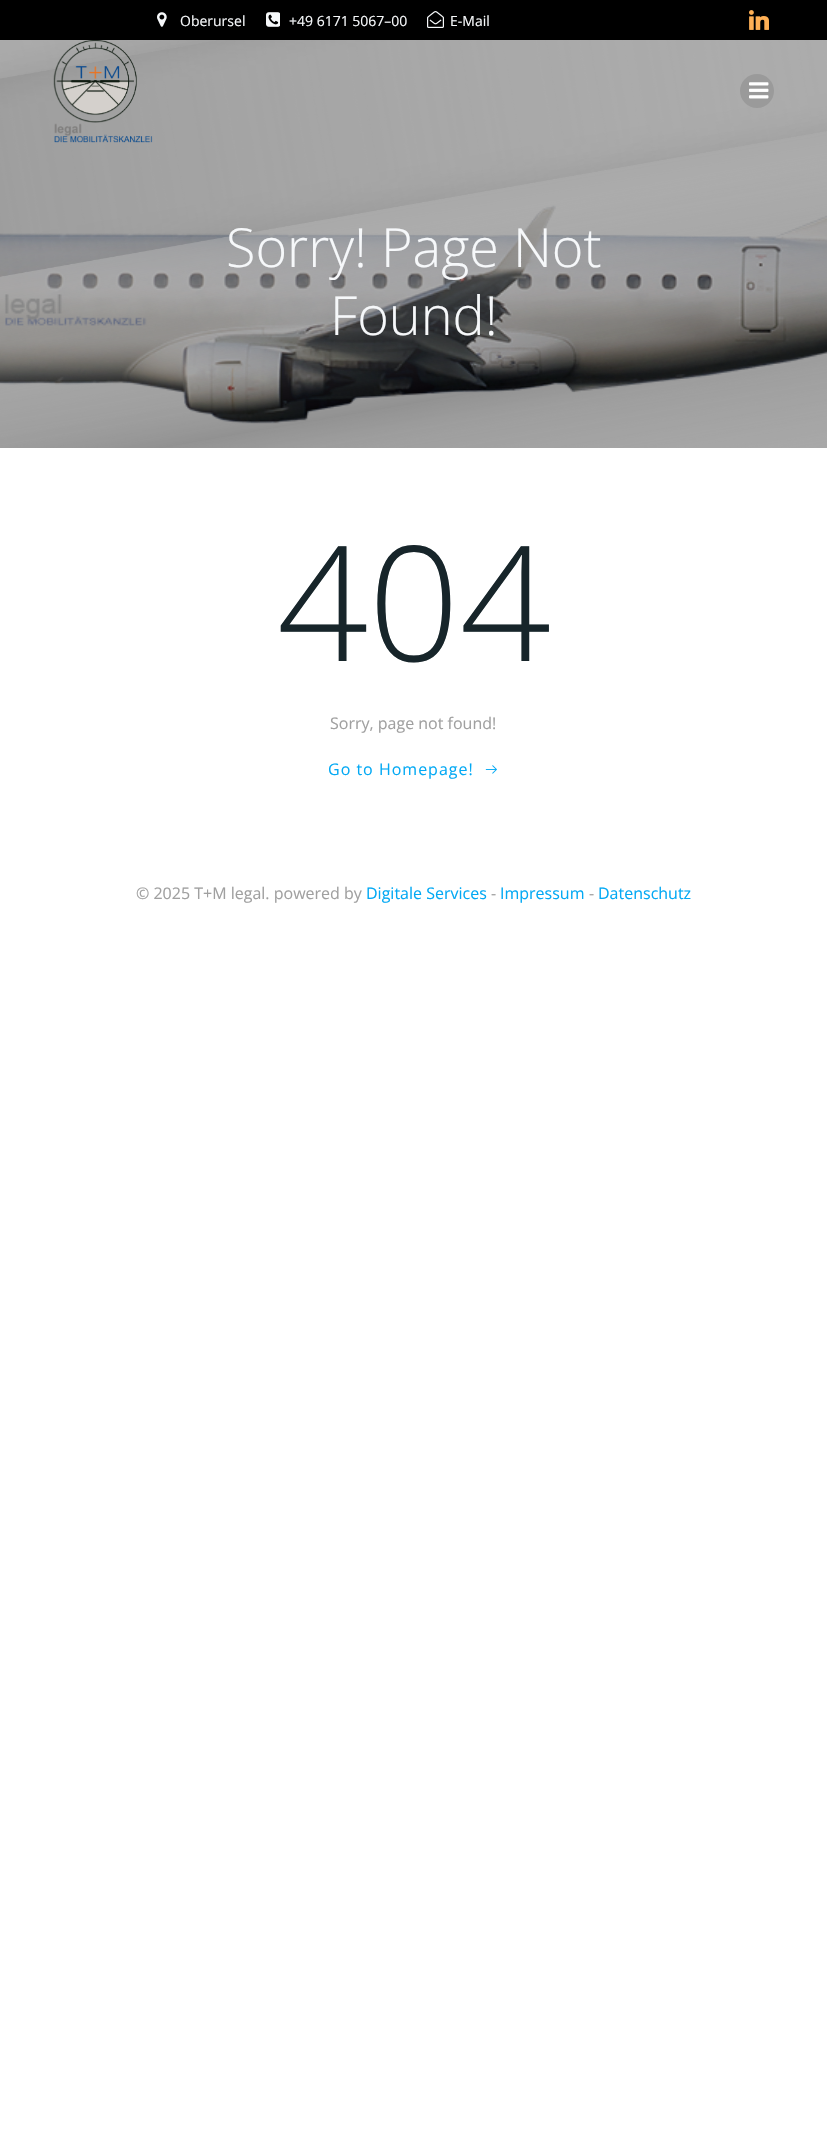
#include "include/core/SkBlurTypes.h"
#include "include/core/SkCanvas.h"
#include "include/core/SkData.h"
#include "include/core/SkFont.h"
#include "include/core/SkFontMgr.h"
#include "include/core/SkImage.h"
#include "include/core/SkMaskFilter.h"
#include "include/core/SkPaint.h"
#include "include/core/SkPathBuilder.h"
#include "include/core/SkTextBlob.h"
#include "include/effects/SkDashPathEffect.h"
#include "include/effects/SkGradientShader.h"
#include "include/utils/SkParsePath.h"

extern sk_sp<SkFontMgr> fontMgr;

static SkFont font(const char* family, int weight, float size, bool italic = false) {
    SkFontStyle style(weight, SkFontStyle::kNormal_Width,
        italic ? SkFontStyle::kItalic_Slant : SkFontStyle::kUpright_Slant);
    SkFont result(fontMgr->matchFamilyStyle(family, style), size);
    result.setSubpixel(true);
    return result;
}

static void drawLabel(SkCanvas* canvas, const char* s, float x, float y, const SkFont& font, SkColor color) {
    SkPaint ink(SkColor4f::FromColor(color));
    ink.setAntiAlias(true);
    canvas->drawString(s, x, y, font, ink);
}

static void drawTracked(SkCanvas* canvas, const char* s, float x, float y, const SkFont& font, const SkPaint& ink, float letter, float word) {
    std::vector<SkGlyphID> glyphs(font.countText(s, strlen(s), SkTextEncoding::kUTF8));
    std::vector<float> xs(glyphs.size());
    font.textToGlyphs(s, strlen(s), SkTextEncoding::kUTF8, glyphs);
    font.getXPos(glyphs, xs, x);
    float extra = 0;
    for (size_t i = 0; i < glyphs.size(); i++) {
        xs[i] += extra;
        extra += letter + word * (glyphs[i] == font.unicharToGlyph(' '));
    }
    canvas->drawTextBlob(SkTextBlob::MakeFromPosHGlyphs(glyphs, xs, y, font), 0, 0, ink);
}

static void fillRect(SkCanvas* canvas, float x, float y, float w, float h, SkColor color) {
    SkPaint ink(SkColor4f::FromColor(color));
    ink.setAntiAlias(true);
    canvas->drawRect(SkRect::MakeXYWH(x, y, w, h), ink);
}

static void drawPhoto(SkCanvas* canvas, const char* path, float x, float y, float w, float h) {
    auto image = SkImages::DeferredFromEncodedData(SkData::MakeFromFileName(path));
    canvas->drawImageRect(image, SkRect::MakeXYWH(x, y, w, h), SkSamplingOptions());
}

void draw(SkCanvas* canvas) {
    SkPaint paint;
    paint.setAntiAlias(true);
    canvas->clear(0xFFFFFFFF);
    fillRect(canvas, 0, 40, 827, 408, 0xFF999999);
    fillRect(canvas, 0, 0, 827, 40, 0xFF000000);
    drawPhoto(canvas, "assets/img1.png", 157, 12, 10, 15);
    SkFont font1 = font("Open Sans", 400, 14);
    drawLabel(canvas, "Oberursel", 180, 26, font1, 0xFFF6F8FA);
    drawPhoto(canvas, "assets/img2.png", 266, 12, 14, 15);
    drawLabel(canvas, "+49 6171 5067–00", 289, 26, font1, 0xFFF6F8FA);
    drawPhoto(canvas, "assets/img3.png", 427, 11, 17, 17);
    drawLabel(canvas, "E-Mail", 450, 26, font1, 0xFFF6F8FA);
    drawPhoto(canvas, "assets/img4.png", 749, 10, 20, 20);
    drawPhoto(canvas, "assets/img7.png", 0, 205, 827, 219);
    drawPhoto(canvas, "assets/img8.png", 0, 40, 827, 408);
    drawPhoto(canvas, "assets/img5.png", 53, 40, 100, 103);
    paint.setColor(0xFF9A9A9A);
    canvas->drawCircle(757, 91, 17, paint);
    drawPhoto(canvas, "assets/img6.png", 749, 82, 20, 17);
    SkFont font2 = font("Open Sans", 300, 54);
    drawLabel(canvas, "Sorry! Page Not", 226, 267, font2, 0xFFF6F8FA);
    drawLabel(canvas, "Found!", 330, 335, font2, 0xFFF6F8FA);
    SkFont font3 = font("Open Sans", 300, 160);
    drawLabel(canvas, "404", 277, 661, font3, 0xFF17252A);
    SkFont font4 = font("Open Sans", 400, 16);
    drawLabel(canvas, "Sorry, page not found!", 330, 729, font4, 0xFFA0A0A0);
    paint.setColor(0xFF03A9F4);
    drawTracked(canvas, "Go to Homepage!", 328, 775, font4, paint, 1, 0);
    drawPhoto(canvas, "assets/img9.png", 485, 765, 12, 9);
    drawLabel(canvas, "© 2025 T+M legal. powered by", 136, 899, font4, 0xFFA0A0A0);
    drawLabel(canvas, "Digitale Services", 366, 899, font4, 0xFF03A9F4);
    drawLabel(canvas, "-", 491, 899, font4, 0xFFA0A0A0);
    drawLabel(canvas, "Impressum", 500, 899, font4, 0xFF03A9F4);
    drawLabel(canvas, "-", 589, 899, font4, 0xFFA0A0A0);
    drawLabel(canvas, "Datenschutz", 598, 899, font4, 0xFF03A9F4);
}
